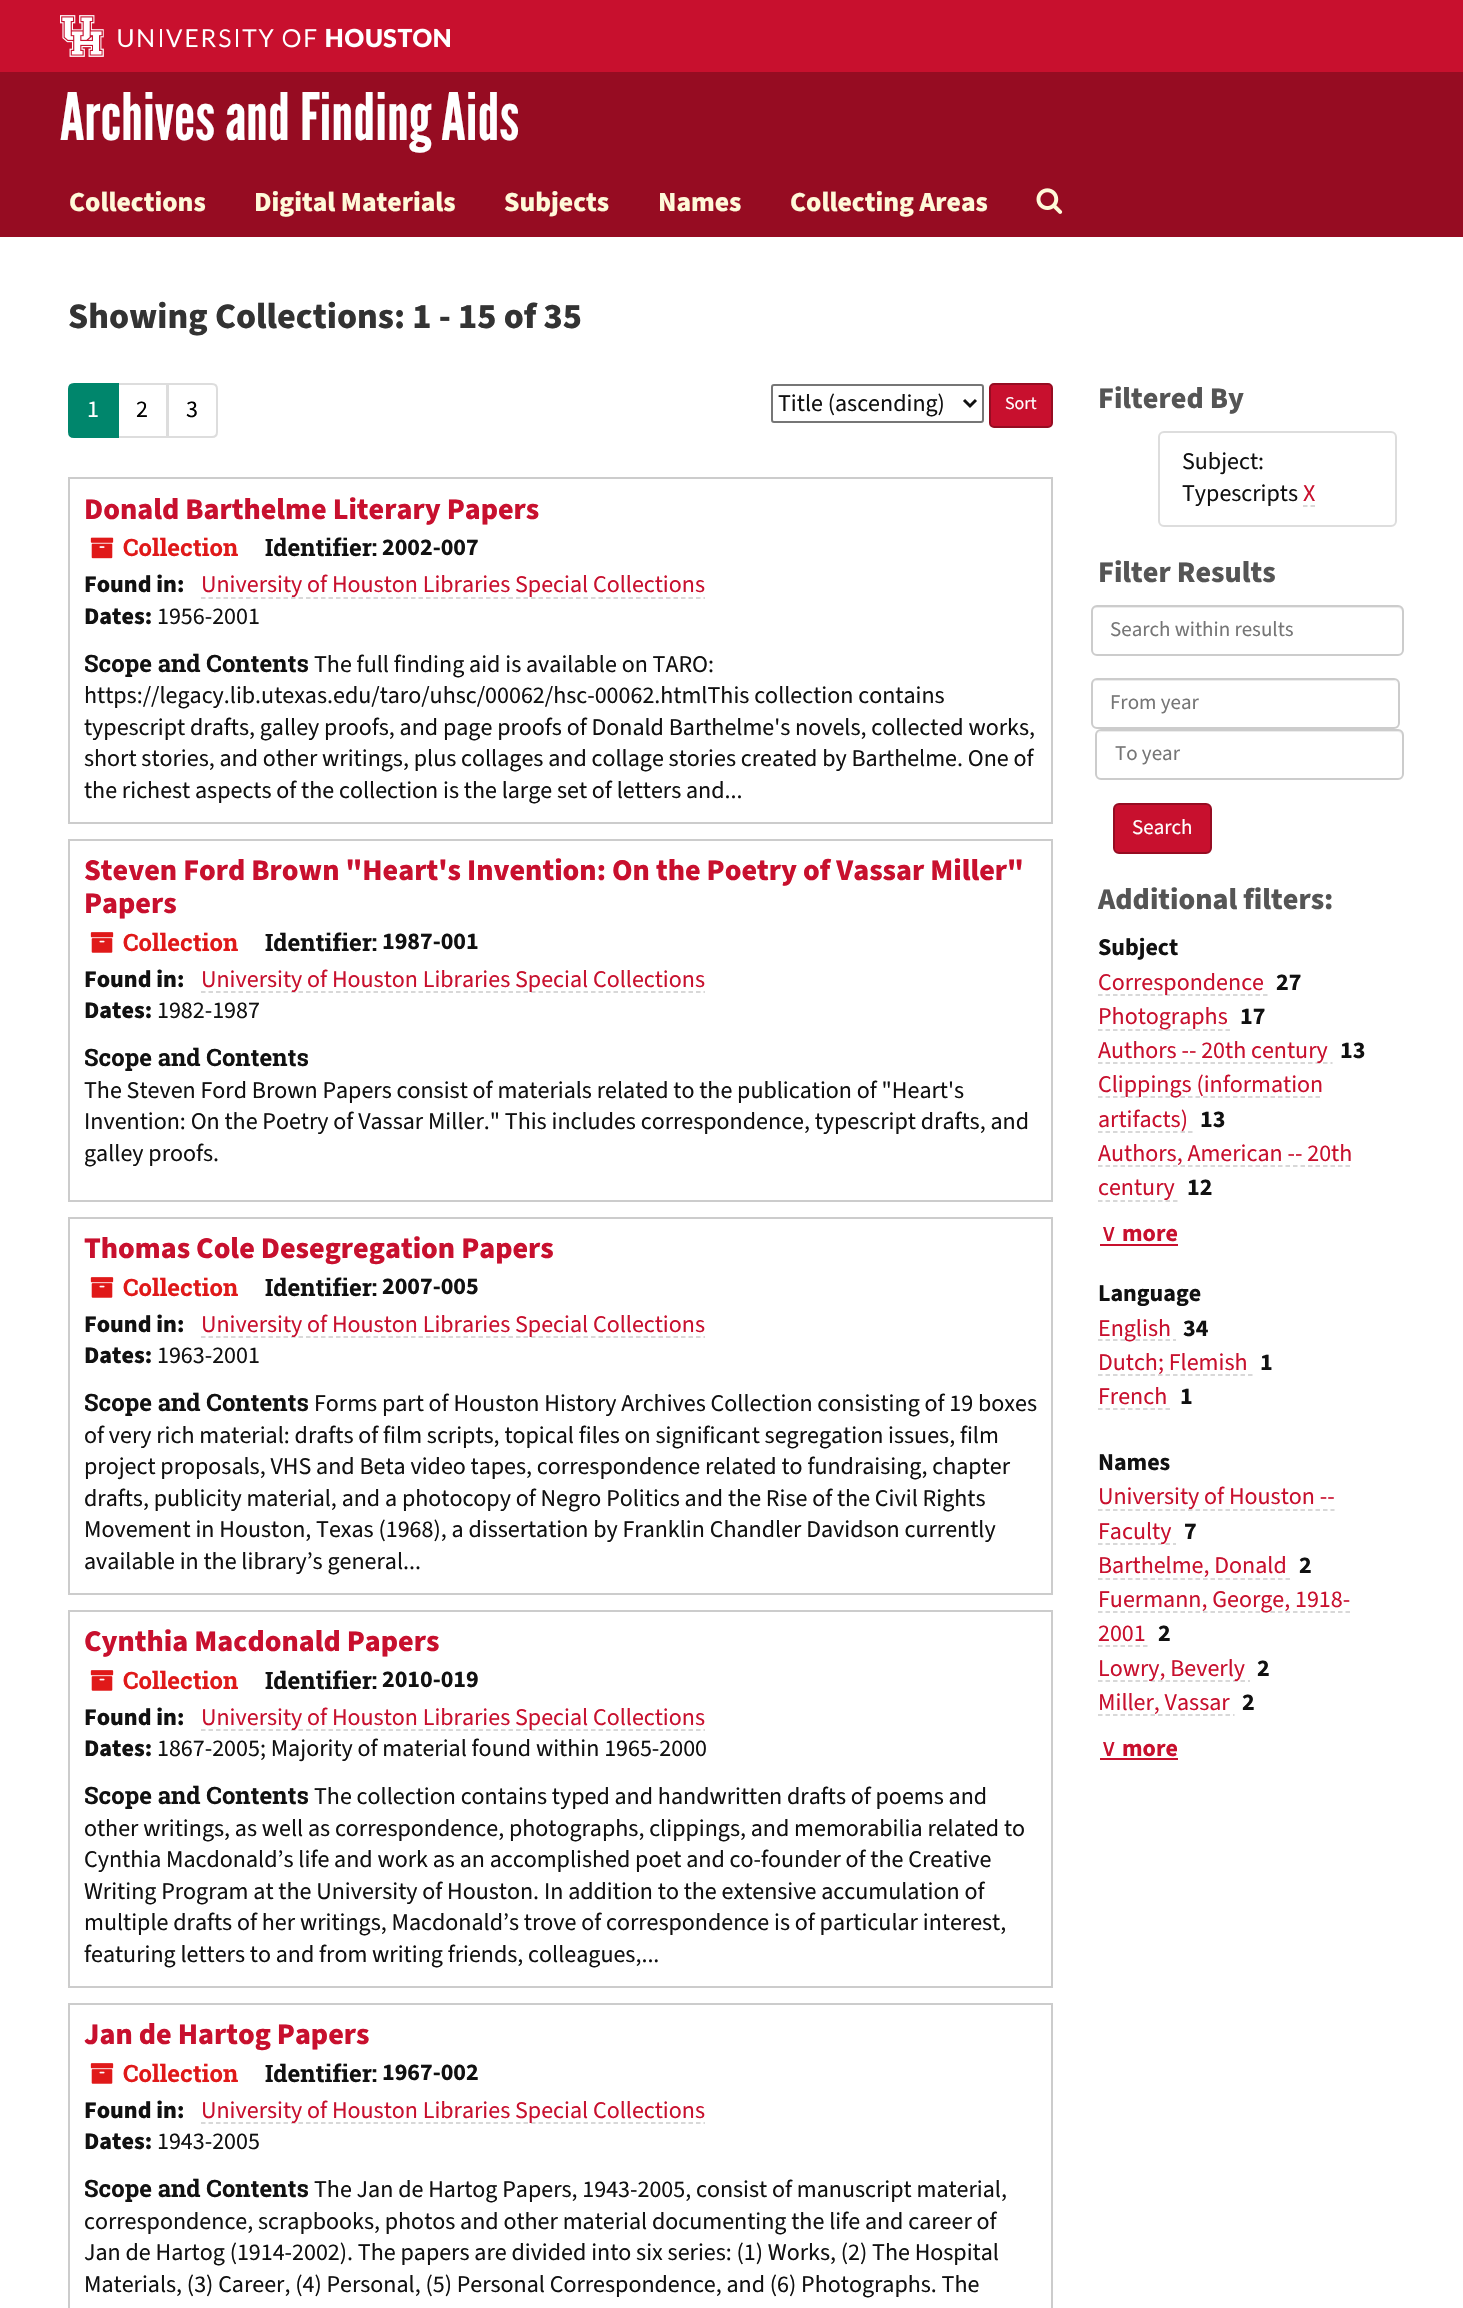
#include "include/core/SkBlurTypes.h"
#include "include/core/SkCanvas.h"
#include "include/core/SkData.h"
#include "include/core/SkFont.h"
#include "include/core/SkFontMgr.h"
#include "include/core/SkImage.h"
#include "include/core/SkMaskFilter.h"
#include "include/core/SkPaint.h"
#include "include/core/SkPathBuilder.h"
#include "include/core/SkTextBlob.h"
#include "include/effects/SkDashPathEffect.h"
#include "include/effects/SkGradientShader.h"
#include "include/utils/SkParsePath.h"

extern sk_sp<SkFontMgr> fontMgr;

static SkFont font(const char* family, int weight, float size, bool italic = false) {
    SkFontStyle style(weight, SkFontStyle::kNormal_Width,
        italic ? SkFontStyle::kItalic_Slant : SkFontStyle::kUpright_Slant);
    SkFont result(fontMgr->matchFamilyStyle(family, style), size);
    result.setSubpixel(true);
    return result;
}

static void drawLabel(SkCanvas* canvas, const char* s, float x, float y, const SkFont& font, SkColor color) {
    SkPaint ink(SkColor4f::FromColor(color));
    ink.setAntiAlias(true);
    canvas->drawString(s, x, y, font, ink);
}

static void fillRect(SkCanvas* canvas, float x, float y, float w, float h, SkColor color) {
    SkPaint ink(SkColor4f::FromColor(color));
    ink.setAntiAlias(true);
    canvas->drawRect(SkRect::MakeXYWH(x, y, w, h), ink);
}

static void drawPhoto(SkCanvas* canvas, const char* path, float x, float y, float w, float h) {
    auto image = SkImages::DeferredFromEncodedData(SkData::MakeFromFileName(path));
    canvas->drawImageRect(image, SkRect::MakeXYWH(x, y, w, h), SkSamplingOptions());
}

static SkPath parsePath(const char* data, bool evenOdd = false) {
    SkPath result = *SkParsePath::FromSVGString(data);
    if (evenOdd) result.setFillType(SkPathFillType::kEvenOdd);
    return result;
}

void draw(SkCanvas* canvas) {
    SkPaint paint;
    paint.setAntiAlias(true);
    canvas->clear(0xFFFFFFFF);
    fillRect(canvas, 0, 0, 1463, 72, 0xFFC8102E);
    drawPhoto(canvas, "assets/img1.png", 60, 15, 390, 42);
    fillRect(canvas, 0, 72, 1463, 165, 0xFF960C22);
    SkFont font1 = font("League Gothic", 400, 65.25f);
    drawLabel(canvas, "Archives and Finding Aids", 60, 140, font1, 0xFFFFFFFF);
    SkFont font2 = font("Source Sans 3", 800, 27.5f);
    drawLabel(canvas, "Collections", 69, 211, font2, 0xFFFFF9D9);
    drawLabel(canvas, "Digital Materials", 254, 211, font2, 0xFFFFF9D9);
    drawLabel(canvas, "Subjects", 504, 211, font2, 0xFFFFF9D9);
    drawLabel(canvas, "Names", 658, 211, font2, 0xFFFFF9D9);
    drawLabel(canvas, "Collecting Areas", 790, 211, font2, 0xFFFFF9D9);
    drawPhoto(canvas, "assets/img2.png", 1036, 188, 27, 26);
    SkFont font3 = font("Source Sans 3", 800, 36);
    drawLabel(canvas, "Showing Collections: 1 - 15 of 35", 68, 328, font3, 0xFF333333);
    paint.setStroke(true);
    paint.setStrokeWidth(2);
    paint.setColor(0xFFDDDDDD);
    canvas->drawRect(SkRect::MakeXYWH(118, 384, 49, 53), paint);
    paint.setStroke(false);
    paint.setColor(0xFF00866C);
    canvas->drawPath(parsePath("M74 384H118V437H74C71 437 69 435 69 432V389C69 386 71 384 74 384Z"), paint);
    paint.setStroke(true);
    canvas->drawPath(parsePath("M74 384H118V437H74C71 437 69 435 69 432V389C69 386 71 384 74 384Z"), paint);
    SkFont font4 = font("Source Sans 3", 400, 24);
    drawLabel(canvas, "1", 87, 417, font4, 0xFFFFFFFF);
    drawLabel(canvas, "2", 136, 417, font4, 0xFF000000);
    paint.setStroke(false);
    paint.setColor(0xFFFFFFFF);
    canvas->drawPath(parsePath("M168 384H212C215 384 217 386 217 389V432C217 435 215 437 212 437H168Z"), paint);
    paint.setStroke(true);
    paint.setColor(0xFFDDDDDD);
    canvas->drawPath(parsePath("M168 384H212C215 384 217 386 217 389V432C217 435 215 437 212 437H168Z"), paint);
    drawLabel(canvas, "3", 186, 417, font4, 0xFF000000);
    paint.setColor(0xFF767676);
    canvas->drawRoundRect(SkRect::MakeXYWH(772, 385, 211, 37), 2, 2, paint);
    paint.setStrokeWidth(3);
    paint.setColor(0xFF111111);
    canvas->drawPath(parsePath("M964 400L970 406L976 400"), paint);
    drawLabel(canvas, "Title (ascending)", 778, 411, font4, 0xFF111111);
    paint.setStroke(false);
    paint.setColor(0xFFC8102E);
    canvas->drawRoundRect(SkRect::MakeXYWH(990, 384, 62, 43), 4, 4, paint);
    paint.setStroke(true);
    paint.setStrokeWidth(2);
    paint.setColor(0xFF960C22);
    canvas->drawRoundRect(SkRect::MakeXYWH(990, 384, 62, 43), 4, 4, paint);
    SkFont font5 = font("Source Sans 3", 400, 18);
    drawLabel(canvas, "Sort", 1005, 409, font5, 0xFFFFFFFF);
    paint.setColor(0xFFCCCCCC);
    canvas->drawRect(SkRect::MakeXYWH(69, 478, 983, 345), paint);
    SkFont font6 = font("Source Sans 3", 800, 30);
    drawLabel(canvas, "Donald Barthelme Literary Papers", 84, 519, font6, 0xFFC8102E);
    drawPhoto(canvas, "assets/img3.png", 90, 537, 24, 22);
    SkFont font7 = font("Roboto Slab", 700, 24);
    drawLabel(canvas, "Collection", 123, 556, font7, 0xFFE01919);
    drawLabel(canvas, "Identifier:", 265, 556, font7, 0xFF111111);
    SkFont font8 = font("Source Sans 3", 700, 24);
    drawLabel(canvas, "2002-007", 382, 555, font8, 0xFF111111);
    SkFont font9 = font("Source Sans 3", 800, 24);
    drawLabel(canvas, "Found in:", 84, 592, font9, 0xFF111111);
    drawLabel(canvas, "University of Houston Libraries Special Collections", 201, 592, font4, 0xFFC8102E);
    paint.setStrokeWidth(1.5f);
    paint.setPathEffect(SkDashPathEffect::Make({{4.5f, 3}}, 0));
    canvas->drawPath(parsePath("M201 598H705"), paint);
    paint.setPathEffect(nullptr);
    drawLabel(canvas, "Dates:", 84, 624, font9, 0xFF111111);
    drawLabel(canvas, "1956-2001", 157, 624, font4, 0xFF111111);
    drawLabel(canvas, "Scope and Contents", 84, 672, font7, 0xFF111111);
    drawLabel(canvas, "The full finding aid is available on TARO:", 314, 672, font4, 0xFF111111);
    drawLabel(canvas, "https://legacy.lib.utexas.edu/taro/uhsc/00062/hsc-00062.htmlThis collection contains", 84, 703, font4, 0xFF111111);
    drawLabel(canvas, "typescript drafts, galley proofs, and page proofs of Donald Barthelme's novels, collected works,", 84, 735, font4, 0xFF111111);
    drawLabel(canvas, "short stories, and other writings, plus collages and collage stories created by Barthelme. One of", 84, 766, font4, 0xFF111111);
    drawLabel(canvas, "the richest aspects of the collection is the large set of letters and...", 84, 798, font4, 0xFF111111);
    paint.setStrokeWidth(2);
    canvas->drawRect(SkRect::MakeXYWH(69, 840, 983, 361), paint);
    drawLabel(canvas, "Steven Ford Brown \"Heart's Invention: On the Poetry of Vassar Miller\"", 84, 880, font6, 0xFFC8102E);
    drawLabel(canvas, "Papers", 84, 913, font6, 0xFFC8102E);
    drawPhoto(canvas, "assets/img4.png", 90, 932, 24, 21);
    drawLabel(canvas, "Collection", 123, 951, font7, 0xFFE01919);
    drawLabel(canvas, "Identifier:", 265, 951, font7, 0xFF111111);
    drawLabel(canvas, "1987-001", 382, 949, font8, 0xFF111111);
    drawLabel(canvas, "Found in:", 84, 987, font9, 0xFF111111);
    paint.setStrokeWidth(1.5f);
    paint.setPathEffect(SkDashPathEffect::Make({{4.5f, 3}}, 0));
    canvas->drawPath(parsePath("M201 992H705"), paint);
    paint.setPathEffect(nullptr);
    drawLabel(canvas, "University of Houston Libraries Special Collections", 201, 987, font4, 0xFFC8102E);
    drawLabel(canvas, "Dates:", 84, 1018, font9, 0xFF111111);
    drawLabel(canvas, "1982-1987", 157, 1018, font4, 0xFF111111);
    drawLabel(canvas, "Scope and Contents", 84, 1066, font7, 0xFF111111);
    drawLabel(canvas, "The Steven Ford Brown Papers consist of materials related to the publication of \"Heart's", 84, 1098, font4, 0xFF111111);
    drawLabel(canvas, "Invention: On the Poetry of Vassar Miller.\" This includes correspondence, typescript drafts, and", 84, 1129, font4, 0xFF111111);
    drawLabel(canvas, "galley proofs.", 84, 1161, font4, 0xFF111111);
    paint.setStrokeWidth(2);
    canvas->drawRect(SkRect::MakeXYWH(69, 1218, 983, 376), paint);
    drawLabel(canvas, "Thomas Cole Desegregation Papers", 84, 1258, font6, 0xFFC8102E);
    drawPhoto(canvas, "assets/img4.png", 90, 1277, 24, 21);
    drawLabel(canvas, "Collection", 123, 1296, font7, 0xFFE01919);
    drawLabel(canvas, "Identifier:", 265, 1296, font7, 0xFF111111);
    drawLabel(canvas, "2007-005", 382, 1294, font8, 0xFF111111);
    drawLabel(canvas, "Found in:", 84, 1332, font9, 0xFF111111);
    paint.setStrokeWidth(1.5f);
    paint.setPathEffect(SkDashPathEffect::Make({{4.5f, 3}}, 0));
    canvas->drawPath(parsePath("M201 1337H705"), paint);
    paint.setPathEffect(nullptr);
    drawLabel(canvas, "University of Houston Libraries Special Collections", 201, 1332, font4, 0xFFC8102E);
    drawLabel(canvas, "Dates:", 84, 1363, font9, 0xFF111111);
    drawLabel(canvas, "1963-2001", 157, 1363, font4, 0xFF111111);
    drawLabel(canvas, "Scope and Contents", 84, 1411, font7, 0xFF111111);
    drawLabel(canvas, "Forms part of Houston History Archives Collection consisting of 19 boxes", 314, 1411, font4, 0xFF111111);
    drawLabel(canvas, "of very rich material: drafts of film scripts, topical files on significant segregation issues, film", 84, 1443, font4, 0xFF111111);
    drawLabel(canvas, "project proposals, VHS and Beta video tapes, correspondence related to fundraising, chapter", 84, 1474, font4, 0xFF111111);
    drawLabel(canvas, "drafts, publicity material, and a photocopy of Negro Politics and the Rise of the Civil Rights", 84, 1506, font4, 0xFF111111);
    drawLabel(canvas, "Movement in Houston, Texas (1968), a dissertation by Franklin Chandler Davidson currently", 84, 1537, font4, 0xFF111111);
    drawLabel(canvas, "available in the library’s general...", 84, 1569, font4, 0xFF111111);
    paint.setStrokeWidth(2);
    canvas->drawRect(SkRect::MakeXYWH(69, 1611, 983, 376), paint);
    drawLabel(canvas, "Cynthia Macdonald Papers", 84, 1651, font6, 0xFFC8102E);
    drawPhoto(canvas, "assets/img4.png", 90, 1670, 24, 21);
    drawLabel(canvas, "Collection", 123, 1689, font7, 0xFFE01919);
    drawLabel(canvas, "Identifier:", 265, 1689, font7, 0xFF111111);
    drawLabel(canvas, "2010-019", 382, 1687, font8, 0xFF111111);
    drawLabel(canvas, "Found in:", 84, 1725, font9, 0xFF111111);
    paint.setStrokeWidth(1.5f);
    paint.setPathEffect(SkDashPathEffect::Make({{4.5f, 3}}, 0));
    canvas->drawPath(parsePath("M201 1730H705"), paint);
    paint.setPathEffect(nullptr);
    drawLabel(canvas, "University of Houston Libraries Special Collections", 201, 1725, font4, 0xFFC8102E);
    drawLabel(canvas, "Dates:", 84, 1756, font9, 0xFF111111);
    drawLabel(canvas, "1867-2005; Majority of material found within 1965-2000", 157, 1756, font4, 0xFF111111);
    drawLabel(canvas, "Scope and Contents", 84, 1804, font7, 0xFF111111);
    drawLabel(canvas, "The collection contains typed and handwritten drafts of poems and", 314, 1804, font4, 0xFF111111);
    drawLabel(canvas, "other writings, as well as correspondence, photographs, clippings, and memorabilia related to", 84, 1836, font4, 0xFF111111);
    drawLabel(canvas, "Cynthia Macdonald’s life and work as an accomplished poet and co-founder of the Creative", 84, 1867, font4, 0xFF111111);
    drawLabel(canvas, "Writing Program at the University of Houston. In addition to the extensive accumulation of", 84, 1899, font4, 0xFF111111);
    drawLabel(canvas, "multiple drafts of her writings, Macdonald’s trove of correspondence is of particular interest,", 84, 1930, font4, 0xFF111111);
    drawLabel(canvas, "featuring letters to and from writing friends, colleagues,...", 84, 1962, font4, 0xFF111111);
    paint.setStrokeWidth(2);
    canvas->drawRect(SkRect::MakeXYWH(69, 2004, 983, 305), paint);
    drawLabel(canvas, "Jan de Hartog Papers", 84, 2044, font6, 0xFFC8102E);
    drawPhoto(canvas, "assets/img4.png", 90, 2063, 24, 21);
    drawLabel(canvas, "Collection", 123, 2082, font7, 0xFFE01919);
    drawLabel(canvas, "Identifier:", 265, 2082, font7, 0xFF111111);
    drawLabel(canvas, "1967-002", 382, 2080, font8, 0xFF111111);
    drawLabel(canvas, "Found in:", 84, 2118, font9, 0xFF111111);
    paint.setStrokeWidth(1.5f);
    paint.setPathEffect(SkDashPathEffect::Make({{4.5f, 3}}, 0));
    canvas->drawPath(parsePath("M201 2123H705"), paint);
    paint.setPathEffect(nullptr);
    drawLabel(canvas, "University of Houston Libraries Special Collections", 201, 2118, font4, 0xFFC8102E);
    drawLabel(canvas, "Dates:", 84, 2149, font9, 0xFF111111);
    drawLabel(canvas, "1943-2005", 157, 2149, font4, 0xFF111111);
    drawLabel(canvas, "Scope and Contents", 84, 2197, font7, 0xFF111111);
    drawLabel(canvas, "The Jan de Hartog Papers, 1943-2005, consist of manuscript material,", 314, 2197, font4, 0xFF111111);
    drawLabel(canvas, "correspondence, scrapbooks, photos and other material documenting the life and career of", 84, 2229, font4, 0xFF111111);
    drawLabel(canvas, "Jan de Hartog (1914-2002). The papers are divided into six series: (1) Works, (2) The Hospital", 84, 2260, font4, 0xFF111111);
    drawLabel(canvas, "Materials, (3) Career, (4) Personal, (5) Personal Correspondence, and (6) Photographs. The", 84, 2292, font4, 0xFF111111);
    drawLabel(canvas, "Filtered By", 1098, 408, font6, 0xFF555555);
    paint.setStrokeWidth(2);
    paint.setColor(0xFFDDDDDD);
    canvas->drawRoundRect(SkRect::MakeXYWH(1159, 432, 237, 94), 5, 5, paint);
    drawLabel(canvas, "Subject:", 1182, 469, font4, 0xFF111111);
    drawLabel(canvas, "Typescripts", 1182, 501, font4, 0xFF111111);
    drawLabel(canvas, "X", 1303, 501, font4, 0xFFC8102E);
    paint.setStrokeWidth(1.5f);
    paint.setColor(0xFFCCCCCC);
    canvas->drawPath(parsePath("M1303 506H1307.5M1310.5 506H1315"), paint);
    drawLabel(canvas, "Filter Results", 1098, 582, font6, 0xFF555555);
    paint.setStroke(false);
    paint.setColor(0xFFECECEC);
    canvas->drawPath(parsePath("M1096 608H1398C1400 608 1402 610 1402 612V652C1403 651 1403 650 1403 649V611C1403 608 1401 606 1398 606H1097C1094 606 1092 608 1092 611V612C1092 610 1094 608 1096 608Z"), paint);
    paint.setStroke(true);
    paint.setStrokeWidth(2);
    paint.setColor(0xFFCCCCCC);
    canvas->drawRoundRect(SkRect::MakeXYWH(1092, 606, 311, 49), 5, 5, paint);
    SkFont font10 = font("Source Sans 3", 400, 21);
    drawLabel(canvas, "Search within results", 1110, 636, font10, 0xFF767676);
    paint.setStroke(false);
    paint.setColor(0xFFECECEC);
    canvas->drawPath(parsePath("M1096 681H1394C1396 681 1398 683 1398 686C1398 683 1396 680 1393 680H1097C1094 680 1092 683 1092 686C1092 683 1094 681 1096 681Z"), paint);
    paint.setStroke(true);
    paint.setColor(0xFFCCCCCC);
    canvas->drawRoundRect(SkRect::MakeXYWH(1092, 679, 307, 49), 5, 5, paint);
    drawLabel(canvas, "From year", 1110, 709, font10, 0xFF767676);
    paint.setStroke(false);
    paint.setColor(0xFFECECEC);
    canvas->drawPath(parsePath("M1101 732H1398C1400 732 1402 734 1402 736V777C1403 776 1403 775 1403 774V736C1403 733 1401 731 1398 731H1102C1100 731 1099 732 1098 733Z"), paint);
    paint.setStroke(true);
    paint.setColor(0xFFCCCCCC);
    canvas->drawRoundRect(SkRect::MakeXYWH(1096, 730, 307, 49), 5, 5, paint);
    drawLabel(canvas, "To year", 1115, 760, font10, 0xFF767676);
    paint.setStroke(false);
    paint.setColor(0xFFC8102E);
    canvas->drawRoundRect(SkRect::MakeXYWH(1114, 804, 97, 49), 5, 5, paint);
    paint.setStroke(true);
    paint.setColor(0xFF960C22);
    canvas->drawRoundRect(SkRect::MakeXYWH(1114, 804, 97, 49), 5, 5, paint);
    drawLabel(canvas, "Search", 1132, 834, font10, 0xFFFFFFFF);
    drawLabel(canvas, "Additional filters:", 1098, 909, font6, 0xFF555555);
    drawLabel(canvas, "Subject", 1098, 955, font8, 0xFF111111);
    paint.setStrokeWidth(1.5f);
    paint.setColor(0xFFCCCCCC);
    paint.setPathEffect(SkDashPathEffect::Make({{4.5f, 3}}, 0));
    canvas->drawPath(parsePath("M1098 995H1269"), paint);
    paint.setPathEffect(nullptr);
    drawLabel(canvas, "Correspondence", 1098, 990, font4, 0xFFC8102E);
    drawLabel(canvas, "27", 1276, 990, font8, 0xFF111111);
    paint.setPathEffect(SkDashPathEffect::Make({{4.5f, 3}}, 0));
    canvas->drawPath(parsePath("M1098 1030H1232.5"), paint);
    paint.setPathEffect(nullptr);
    drawLabel(canvas, "Photographs", 1098, 1024, font4, 0xFFC8102E);
    drawLabel(canvas, "17", 1240, 1024, font8, 0xFF111111);
    paint.setPathEffect(SkDashPathEffect::Make({{4.5f, 3}}, 0));
    canvas->drawPath(parsePath("M1098 1063H1332.5"), paint);
    paint.setPathEffect(nullptr);
    drawLabel(canvas, "Authors -- 20th century", 1098, 1058, font4, 0xFFC8102E);
    drawLabel(canvas, "13", 1340, 1058, font8, 0xFF111111);
    paint.setPathEffect(SkDashPathEffect::Make({{4.5f, 3}}, 0));
    canvas->drawPath(parsePath("M1098 1097H1323"), paint);
    paint.setPathEffect(nullptr);
    drawLabel(canvas, "Clippings (information", 1098, 1092, font4, 0xFFC8102E);
    paint.setPathEffect(SkDashPathEffect::Make({{4.5f, 3}}, 0));
    canvas->drawPath(parsePath("M1098 1132H1192.5"), paint);
    paint.setPathEffect(nullptr);
    drawLabel(canvas, "artifacts)", 1098, 1127, font4, 0xFFC8102E);
    drawLabel(canvas, "13", 1200, 1127, font8, 0xFF111111);
    paint.setPathEffect(SkDashPathEffect::Make({{4.5f, 3}}, 0));
    canvas->drawPath(parsePath("M1098 1166H1352"), paint);
    paint.setPathEffect(nullptr);
    drawLabel(canvas, "Authors, American -- 20th", 1098, 1161, font4, 0xFFC8102E);
    drawLabel(canvas, "century", 1098, 1195, font4, 0xFFC8102E);
    paint.setPathEffect(SkDashPathEffect::Make({{4.5f, 3}}, 0));
    canvas->drawPath(parsePath("M1098 1201H1179.5"), paint);
    paint.setPathEffect(nullptr);
    drawLabel(canvas, "12", 1187, 1195, font8, 0xFF111111);
    SkFont font11 = font("DejaVu Sans", 400, 24);
    drawLabel(canvas, "∨", 1100, 1241, font11, 0xFFC8102E);
    drawLabel(canvas, "more", 1122, 1241, font8, 0xFFC8102E);
    fillRect(canvas, 1100, 1244, 78, 2, 0xFFC8102E);
    drawLabel(canvas, "Language", 1098, 1301, font8, 0xFF111111);
    paint.setPathEffect(SkDashPathEffect::Make({{4.5f, 3}}, 0));
    canvas->drawPath(parsePath("M1098 1340H1176"), paint);
    paint.setPathEffect(nullptr);
    drawLabel(canvas, "English", 1098, 1336, font4, 0xFFC8102E);
    drawLabel(canvas, "34", 1183, 1336, font8, 0xFF111111);
    paint.setPathEffect(SkDashPathEffect::Make({{4.5f, 3}}, 0));
    canvas->drawPath(parsePath("M1098 1375H1252.5"), paint);
    paint.setPathEffect(nullptr);
    drawLabel(canvas, "Dutch; Flemish", 1098, 1370, font4, 0xFFC8102E);
    drawLabel(canvas, "1", 1260, 1370, font8, 0xFF111111);
    drawLabel(canvas, "French", 1098, 1404, font4, 0xFFC8102E);
    paint.setPathEffect(SkDashPathEffect::Make({{4.5f, 3}}, 0));
    canvas->drawPath(parsePath("M1098 1409H1172"), paint);
    paint.setPathEffect(nullptr);
    drawLabel(canvas, "1", 1180, 1404, font8, 0xFF111111);
    drawLabel(canvas, "Names", 1098, 1470, font8, 0xFF111111);
    drawLabel(canvas, "University of Houston --", 1098, 1504, font4, 0xFFC8102E);
    paint.setPathEffect(SkDashPathEffect::Make({{4.5f, 3}}, 0));
    canvas->drawPath(parsePath("M1098 1510H1334.5"), paint);
    paint.setPathEffect(nullptr);
    paint.setPathEffect(SkDashPathEffect::Make({{4.5f, 3}}, 0));
    canvas->drawPath(parsePath("M1098 1544H1176"), paint);
    paint.setPathEffect(nullptr);
    drawLabel(canvas, "Faculty", 1098, 1539, font4, 0xFFC8102E);
    drawLabel(canvas, "7", 1184, 1539, font8, 0xFF111111);
    drawLabel(canvas, "Barthelme, Donald", 1098, 1573, font4, 0xFFC8102E);
    paint.setPathEffect(SkDashPathEffect::Make({{4.5f, 3}}, 0));
    canvas->drawPath(parsePath("M1098 1579H1291.5"), paint);
    paint.setPathEffect(nullptr);
    drawLabel(canvas, "2", 1299, 1573, font8, 0xFF111111);
    paint.setPathEffect(SkDashPathEffect::Make({{4.5f, 3}}, 0));
    canvas->drawPath(parsePath("M1098 1612H1350"), paint);
    paint.setPathEffect(nullptr);
    drawLabel(canvas, "Fuermann, George, 1918-", 1098, 1607, font4, 0xFFC8102E);
    drawLabel(canvas, "2001", 1098, 1641, font4, 0xFFC8102E);
    paint.setPathEffect(SkDashPathEffect::Make({{4.5f, 3}}, 0));
    canvas->drawPath(parsePath("M1098 1646H1150.5"), paint);
    paint.setPathEffect(nullptr);
    drawLabel(canvas, "2", 1158, 1641, font8, 0xFF111111);
    paint.setPathEffect(SkDashPathEffect::Make({{4.5f, 3}}, 0));
    canvas->drawPath(parsePath("M1098 1681H1250"), paint);
    paint.setPathEffect(nullptr);
    drawLabel(canvas, "Lowry, Beverly", 1098, 1676, font4, 0xFFC8102E);
    drawLabel(canvas, "2", 1257, 1676, font8, 0xFF111111);
    paint.setPathEffect(SkDashPathEffect::Make({{4.5f, 3}}, 0));
    canvas->drawPath(parsePath("M1098 1715H1234.5"), paint);
    paint.setPathEffect(nullptr);
    drawLabel(canvas, "Miller, Vassar", 1098, 1710, font4, 0xFFC8102E);
    drawLabel(canvas, "2", 1242, 1710, font8, 0xFF111111);
    drawLabel(canvas, "∨", 1100, 1756, font11, 0xFFC8102E);
    drawLabel(canvas, "more", 1122, 1756, font8, 0xFFC8102E);
    fillRect(canvas, 1100, 1758, 78, 2, 0xFFC8102E);
}
